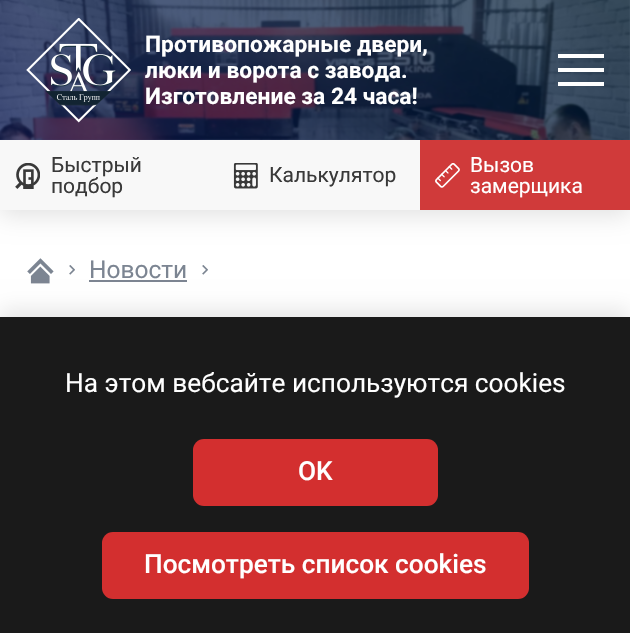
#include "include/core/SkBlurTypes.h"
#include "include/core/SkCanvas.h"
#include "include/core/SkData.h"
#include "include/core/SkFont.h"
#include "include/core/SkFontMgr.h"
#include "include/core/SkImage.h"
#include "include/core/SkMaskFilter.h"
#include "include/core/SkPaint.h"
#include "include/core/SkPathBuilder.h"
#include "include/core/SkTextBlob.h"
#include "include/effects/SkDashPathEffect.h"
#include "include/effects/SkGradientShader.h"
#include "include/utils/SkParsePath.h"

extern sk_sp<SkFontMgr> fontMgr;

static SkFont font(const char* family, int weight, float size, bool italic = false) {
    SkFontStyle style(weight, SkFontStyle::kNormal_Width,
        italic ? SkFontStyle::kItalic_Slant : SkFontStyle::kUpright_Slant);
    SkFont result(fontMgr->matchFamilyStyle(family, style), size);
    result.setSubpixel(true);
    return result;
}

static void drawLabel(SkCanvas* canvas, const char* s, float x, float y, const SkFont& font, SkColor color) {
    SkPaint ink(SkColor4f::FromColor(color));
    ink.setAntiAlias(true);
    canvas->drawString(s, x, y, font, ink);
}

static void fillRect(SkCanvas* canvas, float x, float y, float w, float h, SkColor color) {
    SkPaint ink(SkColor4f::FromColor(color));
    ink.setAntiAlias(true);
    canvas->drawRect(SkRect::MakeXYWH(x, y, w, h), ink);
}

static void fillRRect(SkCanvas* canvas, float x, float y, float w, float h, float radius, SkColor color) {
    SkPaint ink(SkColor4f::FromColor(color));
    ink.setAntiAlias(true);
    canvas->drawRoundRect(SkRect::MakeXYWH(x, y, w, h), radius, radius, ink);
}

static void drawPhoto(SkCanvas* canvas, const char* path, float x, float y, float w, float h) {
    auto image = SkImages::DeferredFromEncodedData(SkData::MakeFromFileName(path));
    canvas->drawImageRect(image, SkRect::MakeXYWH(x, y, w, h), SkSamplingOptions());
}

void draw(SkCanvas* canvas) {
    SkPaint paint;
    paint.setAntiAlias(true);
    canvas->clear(0xFFFFFFFF);
    paint.setColor(0x21000000);
    paint.setMaskFilter(SkMaskFilter::MakeBlur(kNormal_SkBlurStyle, 13));
    canvas->drawRect(SkRect::MakeXYWH(0, 144, 630, 70), paint);
    paint.setMaskFilter(nullptr);
    drawPhoto(canvas, "assets/img1.png", 0, 0, 630, 140);
    {
        const SkColor colors[] = {0xB3001D33, 0xB50A1B59};
        const float stops[] = {0, 1};
        const SkPoint ends[] = {{464, -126}, {166, 266}};
        paint.setShader(SkGradientShader::MakeLinear(ends, colors, stops, 2, SkTileMode::kClamp));
        paint.setAlpha(255);
    }
    canvas->drawRect(SkRect::MakeXYWH(0, 0, 630, 140), paint);
    drawPhoto(canvas, "assets/img2.png", 26, 18, 105, 105);
    SkFont font1 = font("Roboto", 700, 22.75f);
    drawLabel(canvas, "Противопожарные двери,", 145, 52, font1, 0xFFFFFFFF);
    drawLabel(canvas, "люки и ворота с завода.", 145, 78, font1, 0xFFFFFFFF);
    drawLabel(canvas, "Изготовление за 24 часа!", 145, 104, font1, 0xFFFFFFFF);
    fillRect(canvas, 558, 68, 46, 4, 0xFFFFFFFF);
    fillRect(canvas, 558, 54, 46, 4, 0xFFFFFFFF);
    fillRect(canvas, 558, 82, 46, 4, 0xFFFFFFFF);
    fillRect(canvas, 0, 140, 420, 70, 0xFFF8F8F8);
    drawPhoto(canvas, "assets/img3.png", 15, 163, 25, 26);
    SkFont font2 = font("Roboto", 400, 21);
    drawLabel(canvas, "Быстрый", 51, 172, font2, 0xFF393939);
    drawLabel(canvas, "подбор", 51, 193, font2, 0xFF393939);
    drawPhoto(canvas, "assets/img4.png", 233, 163, 25, 26);
    drawLabel(canvas, "Калькулятор", 269, 182, font2, 0xFF393939);
    fillRect(canvas, 420, 140, 210, 70, 0xFFD03A3A);
    drawPhoto(canvas, "assets/img5.png", 435, 163, 25, 25);
    drawLabel(canvas, "Вызов", 470, 172, font2, 0xFFFFFFFF);
    drawLabel(canvas, "замерщика", 470, 193, font2, 0xFFFFFFFF);
    drawPhoto(canvas, "assets/img6.png", 27, 258, 27, 26);
    drawPhoto(canvas, "assets/img7.png", 69, 265, 6, 10);
    SkFont font3 = font("Roboto", 400, 24.5f);
    drawLabel(canvas, "Новости", 89, 278, font3, 0xFF7C8592);
    fillRect(canvas, 89, 280, 98, 2, 0xFF7C8592);
    drawPhoto(canvas, "assets/img7.png", 202, 265, 6, 10);
    paint.setShader(nullptr);
    paint.setColor(0x1A000000);
    paint.setMaskFilter(SkMaskFilter::MakeBlur(kNormal_SkBlurStyle, 10.5f));
    canvas->drawRect(SkRect::MakeXYWH(0, 310, 630, 317), paint);
    paint.setMaskFilter(nullptr);
    fillRect(canvas, 0, 317, 630, 316, 0xFF1A1A1A);
    SkFont font4 = font("Roboto", 400, 26.25f);
    drawLabel(canvas, "На этом вебсайте используются cookies", 65, 392, font4, 0xFFFFFFFF);
    fillRRect(canvas, 193, 439, 245, 67, 11, 0xFFD32F2F);
    SkFont font5 = font("Roboto", 500, 26.25f);
    drawLabel(canvas, "OK", 298, 480, font5, 0xFFFFFFFF);
    fillRRect(canvas, 102, 532, 427, 67, 11, 0xFFD32F2F);
    drawLabel(canvas, "Посмотреть список cookies", 144, 573, font5, 0xFFFFFFFF);
}
